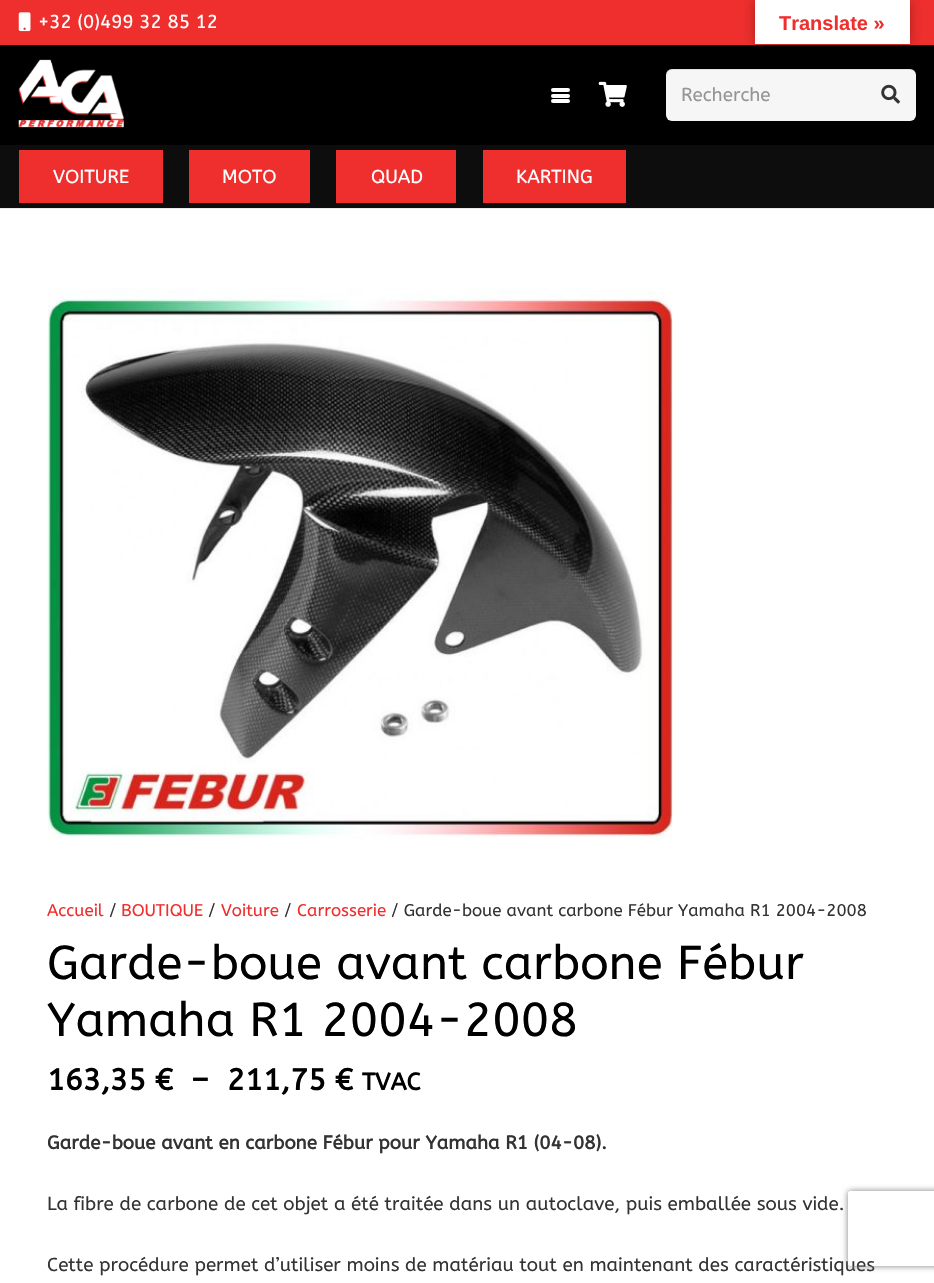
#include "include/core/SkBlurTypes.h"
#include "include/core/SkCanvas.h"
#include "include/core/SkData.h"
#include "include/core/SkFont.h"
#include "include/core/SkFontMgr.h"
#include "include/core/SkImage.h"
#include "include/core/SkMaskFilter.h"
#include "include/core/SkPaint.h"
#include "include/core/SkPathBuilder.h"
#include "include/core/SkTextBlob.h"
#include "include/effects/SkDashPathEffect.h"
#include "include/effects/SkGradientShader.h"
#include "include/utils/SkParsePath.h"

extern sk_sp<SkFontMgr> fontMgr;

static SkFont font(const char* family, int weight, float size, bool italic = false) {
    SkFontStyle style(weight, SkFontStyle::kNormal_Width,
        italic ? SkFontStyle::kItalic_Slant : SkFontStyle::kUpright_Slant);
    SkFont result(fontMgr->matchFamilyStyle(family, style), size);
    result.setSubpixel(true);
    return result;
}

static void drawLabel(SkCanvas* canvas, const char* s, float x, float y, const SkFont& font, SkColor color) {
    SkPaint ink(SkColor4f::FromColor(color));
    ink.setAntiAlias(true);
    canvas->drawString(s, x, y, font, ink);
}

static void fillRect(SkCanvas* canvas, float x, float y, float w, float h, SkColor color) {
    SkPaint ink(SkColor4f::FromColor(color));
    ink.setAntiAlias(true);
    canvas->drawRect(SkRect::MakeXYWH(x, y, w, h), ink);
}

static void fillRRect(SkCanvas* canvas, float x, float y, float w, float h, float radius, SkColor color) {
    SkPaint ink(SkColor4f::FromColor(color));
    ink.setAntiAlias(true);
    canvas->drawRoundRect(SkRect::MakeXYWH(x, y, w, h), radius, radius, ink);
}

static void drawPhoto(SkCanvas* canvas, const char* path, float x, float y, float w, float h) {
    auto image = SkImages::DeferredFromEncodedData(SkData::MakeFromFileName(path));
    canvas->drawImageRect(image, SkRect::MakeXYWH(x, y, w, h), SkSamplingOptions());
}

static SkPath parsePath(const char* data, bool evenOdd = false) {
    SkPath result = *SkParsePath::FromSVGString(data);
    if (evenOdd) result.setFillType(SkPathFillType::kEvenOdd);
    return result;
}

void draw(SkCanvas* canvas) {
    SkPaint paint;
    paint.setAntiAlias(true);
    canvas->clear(0xFFFFFFFF);
    fillRect(canvas, 0, 0, 934, 45, 0xFFEE2F2D);
    drawPhoto(canvas, "assets/img1.png", 18, 12, 13, 20);
    SkFont font1 = font("ABeeZee", 400, 18.75f);
    drawLabel(canvas, "+32 (0)499 32 85 12", 38, 28, font1, 0xFFFFFFFF);
    fillRect(canvas, 0, 45, 934, 100, 0xFF000000);
    drawPhoto(canvas, "assets/img2.png", 18, 59, 106, 69);
    fillRRect(canvas, 551, 94, 19, 4, 2, 0xFFFFFFFF);
    fillRRect(canvas, 551, 88, 19, 4, 2, 0xFFFFFFFF);
    fillRRect(canvas, 551, 99, 19, 4, 2, 0xFFFFFFFF);
    drawPhoto(canvas, "assets/img3.png", 598, 81, 29, 26);
    fillRRect(canvas, 666, 69, 250, 52, 6, 0xFFF6F6F6);
    paint.setColor(0x14000000);
    canvas->drawPath(parsePath("M672 70H911C914 70 916 73 916 76C916 72 914 69 910 69H671C667 70 666 73 666 76C666 73 669 70 672 70Z"), paint);
    drawLabel(canvas, "Recherche", 681, 101, font1, 0xFF959595);
    drawPhoto(canvas, "assets/img4.png", 881, 84, 19, 20);
    fillRect(canvas, 0, 208, 934, 1, 0xFFEBEBEB);
    fillRect(canvas, 0, 145, 934, 63, 0xFF0D0D0D);
    fillRect(canvas, 19, 150, 144, 53, 0xFFEE2F2D);
    drawLabel(canvas, "VOITURE", 53, 183, font1, 0xFFFFFFFF);
    fillRect(canvas, 189, 150, 121, 53, 0xFFEE2F2D);
    drawLabel(canvas, "MOTO", 222, 183, font1, 0xFFFFFFFF);
    fillRect(canvas, 336, 150, 120, 53, 0xFFEE2F2D);
    drawLabel(canvas, "QUAD", 371, 183, font1, 0xFFFFFFFF);
    fillRect(canvas, 483, 150, 143, 53, 0xFFEE2F2D);
    drawLabel(canvas, "KARTING", 516, 183, font1, 0xFFFFFFFF);
    drawPhoto(canvas, "assets/img5.png", 47, 288, 626, 551);
    SkFont font2 = font("ABeeZee", 400, 16.9f);
    drawLabel(canvas, "Accueil", 47, 916, font2, 0xFFEE2F2D);
    drawLabel(canvas, "/", 109, 916, font2, 0xFF333333);
    drawLabel(canvas, "BOUTIQUE", 121, 916, font2, 0xFFEE2F2D);
    drawLabel(canvas, "/", 208, 916, font2, 0xFF333333);
    drawLabel(canvas, "Voiture", 221, 916, font2, 0xFFEE2F2D);
    drawLabel(canvas, "/", 284, 916, font2, 0xFF333333);
    drawLabel(canvas, "Carrosserie", 297, 916, font2, 0xFFEE2F2D);
    drawLabel(canvas, "/ Garde-boue avant carbone Fébur Yamaha R1 2004-2008", 391, 916, font2, 0xFF333333);
    SkFont font3 = font("ABeeZee", 400, 47.5f);
    drawLabel(canvas, "Garde-boue avant carbone Fébur", 47, 979, font3, 0xFF000000);
    drawLabel(canvas, "Yamaha R1 2004-2008", 47, 1036, font3, 0xFF000000);
    SkFont font4 = font("ABeeZee", 700, 30);
    drawLabel(canvas, "163,35 €", 47, 1090, font4, 0xFF000000);
    drawLabel(canvas, "–", 191, 1090, font4, 0xFF000000);
    drawLabel(canvas, "211,75 €", 227, 1090, font4, 0xFF000000);
    SkFont font5 = font("ABeeZee", 700, 24);
    drawLabel(canvas, "TVAC", 362, 1090, font5, 0xFF000000);
    SkFont font6 = font("ABeeZee", 700, 18.75f);
    drawLabel(canvas, "Garde-boue avant en carbone Fébur pour Yamaha R1 (04-08).", 47, 1149, font6, 0xFF333333);
    drawLabel(canvas, "La fibre de carbone de cet objet a été traitée dans un autoclave, puis emballée sous vide.", 47, 1210, font1, 0xFF333333);
    drawLabel(canvas, "Cette procédure permet d’utiliser moins de matériau tout en maintenant des caractéristiques", 47, 1271, font1, 0xFF333333);
    paint.setColor(0x4D000000);
    paint.setMaskFilter(SkMaskFilter::MakeBlur(kNormal_SkBlurStyle, 5.5f));
    canvas->drawRect(SkRect::MakeXYWH(755, 0, 155, 44), paint);
    paint.setMaskFilter(nullptr);
    fillRect(canvas, 755, 0, 155, 44, 0xFFFFFFFF);
    SkFont font7 = font("Liberation Sans", 700, 20);
    drawLabel(canvas, "Translate »", 779, 30, font7, 0xFFEE2F2D);
    canvas->save();
    canvas->clipPath(parsePath("M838 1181H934V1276H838ZM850.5 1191H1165.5C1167 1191 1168 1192 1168 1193.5V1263.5C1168 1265 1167 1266 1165.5 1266H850.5C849 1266 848 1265 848 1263.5V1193.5C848 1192 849 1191 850.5 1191Z", true), true);
    paint.setColor(0xFF808080);
    paint.setMaskFilter(SkMaskFilter::MakeBlur(kNormal_SkBlurStyle, 3));
    canvas->drawRoundRect(SkRect::MakeXYWH(848, 1191, 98, 75), 2.5f, 2.5f, paint);
    paint.setMaskFilter(nullptr);
    canvas->restore();
}
